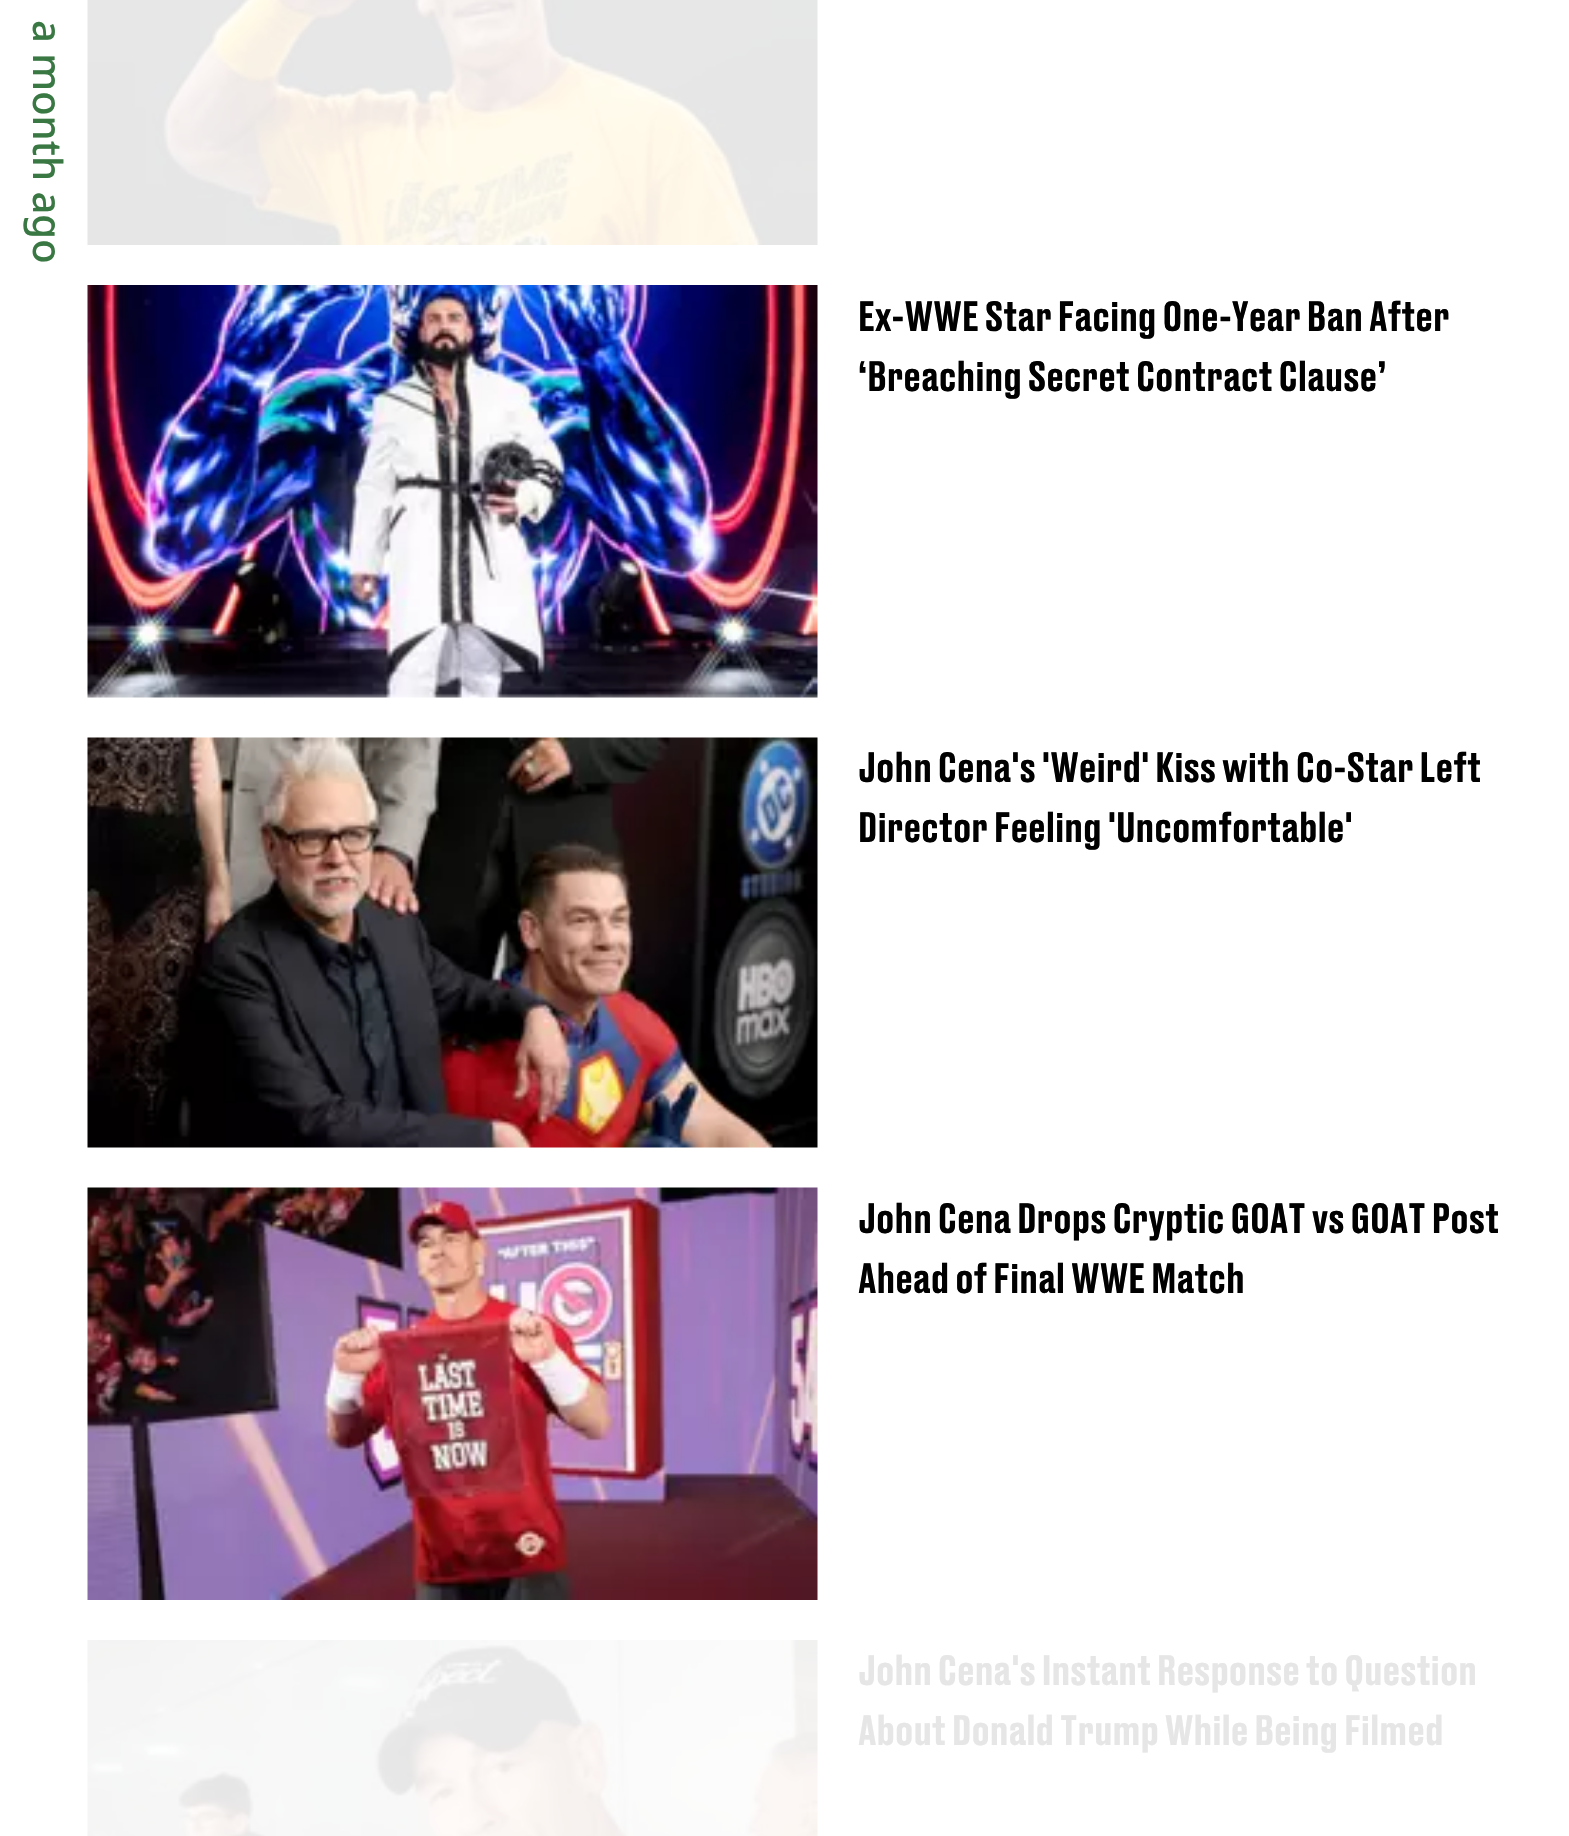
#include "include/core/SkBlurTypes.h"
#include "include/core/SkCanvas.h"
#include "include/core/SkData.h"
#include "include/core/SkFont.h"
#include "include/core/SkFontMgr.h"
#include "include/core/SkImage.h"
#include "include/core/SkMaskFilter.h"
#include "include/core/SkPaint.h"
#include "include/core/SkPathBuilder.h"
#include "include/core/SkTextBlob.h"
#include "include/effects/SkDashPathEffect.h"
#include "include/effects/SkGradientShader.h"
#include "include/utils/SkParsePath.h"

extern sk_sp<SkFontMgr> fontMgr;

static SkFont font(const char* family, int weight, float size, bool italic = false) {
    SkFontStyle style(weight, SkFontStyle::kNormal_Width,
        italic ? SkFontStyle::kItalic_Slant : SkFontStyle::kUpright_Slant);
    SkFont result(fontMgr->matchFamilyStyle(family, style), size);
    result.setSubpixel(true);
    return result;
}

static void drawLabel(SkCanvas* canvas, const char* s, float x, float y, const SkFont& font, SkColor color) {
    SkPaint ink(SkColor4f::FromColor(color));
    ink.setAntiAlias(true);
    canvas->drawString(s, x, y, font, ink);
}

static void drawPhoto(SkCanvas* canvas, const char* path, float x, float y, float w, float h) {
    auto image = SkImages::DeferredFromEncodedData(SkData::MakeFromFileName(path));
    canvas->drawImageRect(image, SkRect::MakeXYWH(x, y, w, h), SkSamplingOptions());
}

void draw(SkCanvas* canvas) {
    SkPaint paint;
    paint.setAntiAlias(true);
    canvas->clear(0xFFFFFFFF);
    SkFont font1 = font("Noto Sans", 500, 40);
    canvas->save();
    canvas->rotate(90, 33, 20);
    drawLabel(canvas, "a month ago", 33, 20, font1, 0xFF397843);
    canvas->restore();
    drawPhoto(canvas, "assets/img1.png", 87, 0, 731, 245);
    drawPhoto(canvas, "assets/img2.png", 87, 285, 731, 413);
    SkFont font2 = font("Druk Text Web", 500, 40);
    drawLabel(canvas, "Ex-WWE Star Facing One-Year Ban After", 858, 331, font2, 0xFF000000);
    drawLabel(canvas, "‘Breaching Secret Contract Clause’", 858, 391, font2, 0xFF000000);
    drawPhoto(canvas, "assets/img3.png", 87, 737, 731, 411);
    drawLabel(canvas, "John Cena's 'Weird' Kiss with Co-Star Left", 858, 782, font2, 0xFF000000);
    drawLabel(canvas, "Director Feeling 'Uncomfortable'", 858, 842, font2, 0xFF000000);
    drawPhoto(canvas, "assets/img4.png", 87, 1187, 731, 413);
    drawLabel(canvas, "John Cena Drops Cryptic GOAT vs GOAT Post", 858, 1233, font2, 0xFF000000);
    drawLabel(canvas, "Ahead of Final WWE Match", 858, 1293, font2, 0xFF000000);
    drawPhoto(canvas, "assets/img5.png", 87, 1640, 731, 196);
    drawLabel(canvas, "John Cena's Instant Response to Question", 858, 1685, font2, 0xFFE6E6E6);
    drawLabel(canvas, "About Donald Trump While Being Filmed", 858, 1745, font2, 0xFFE6E6E6);
}
